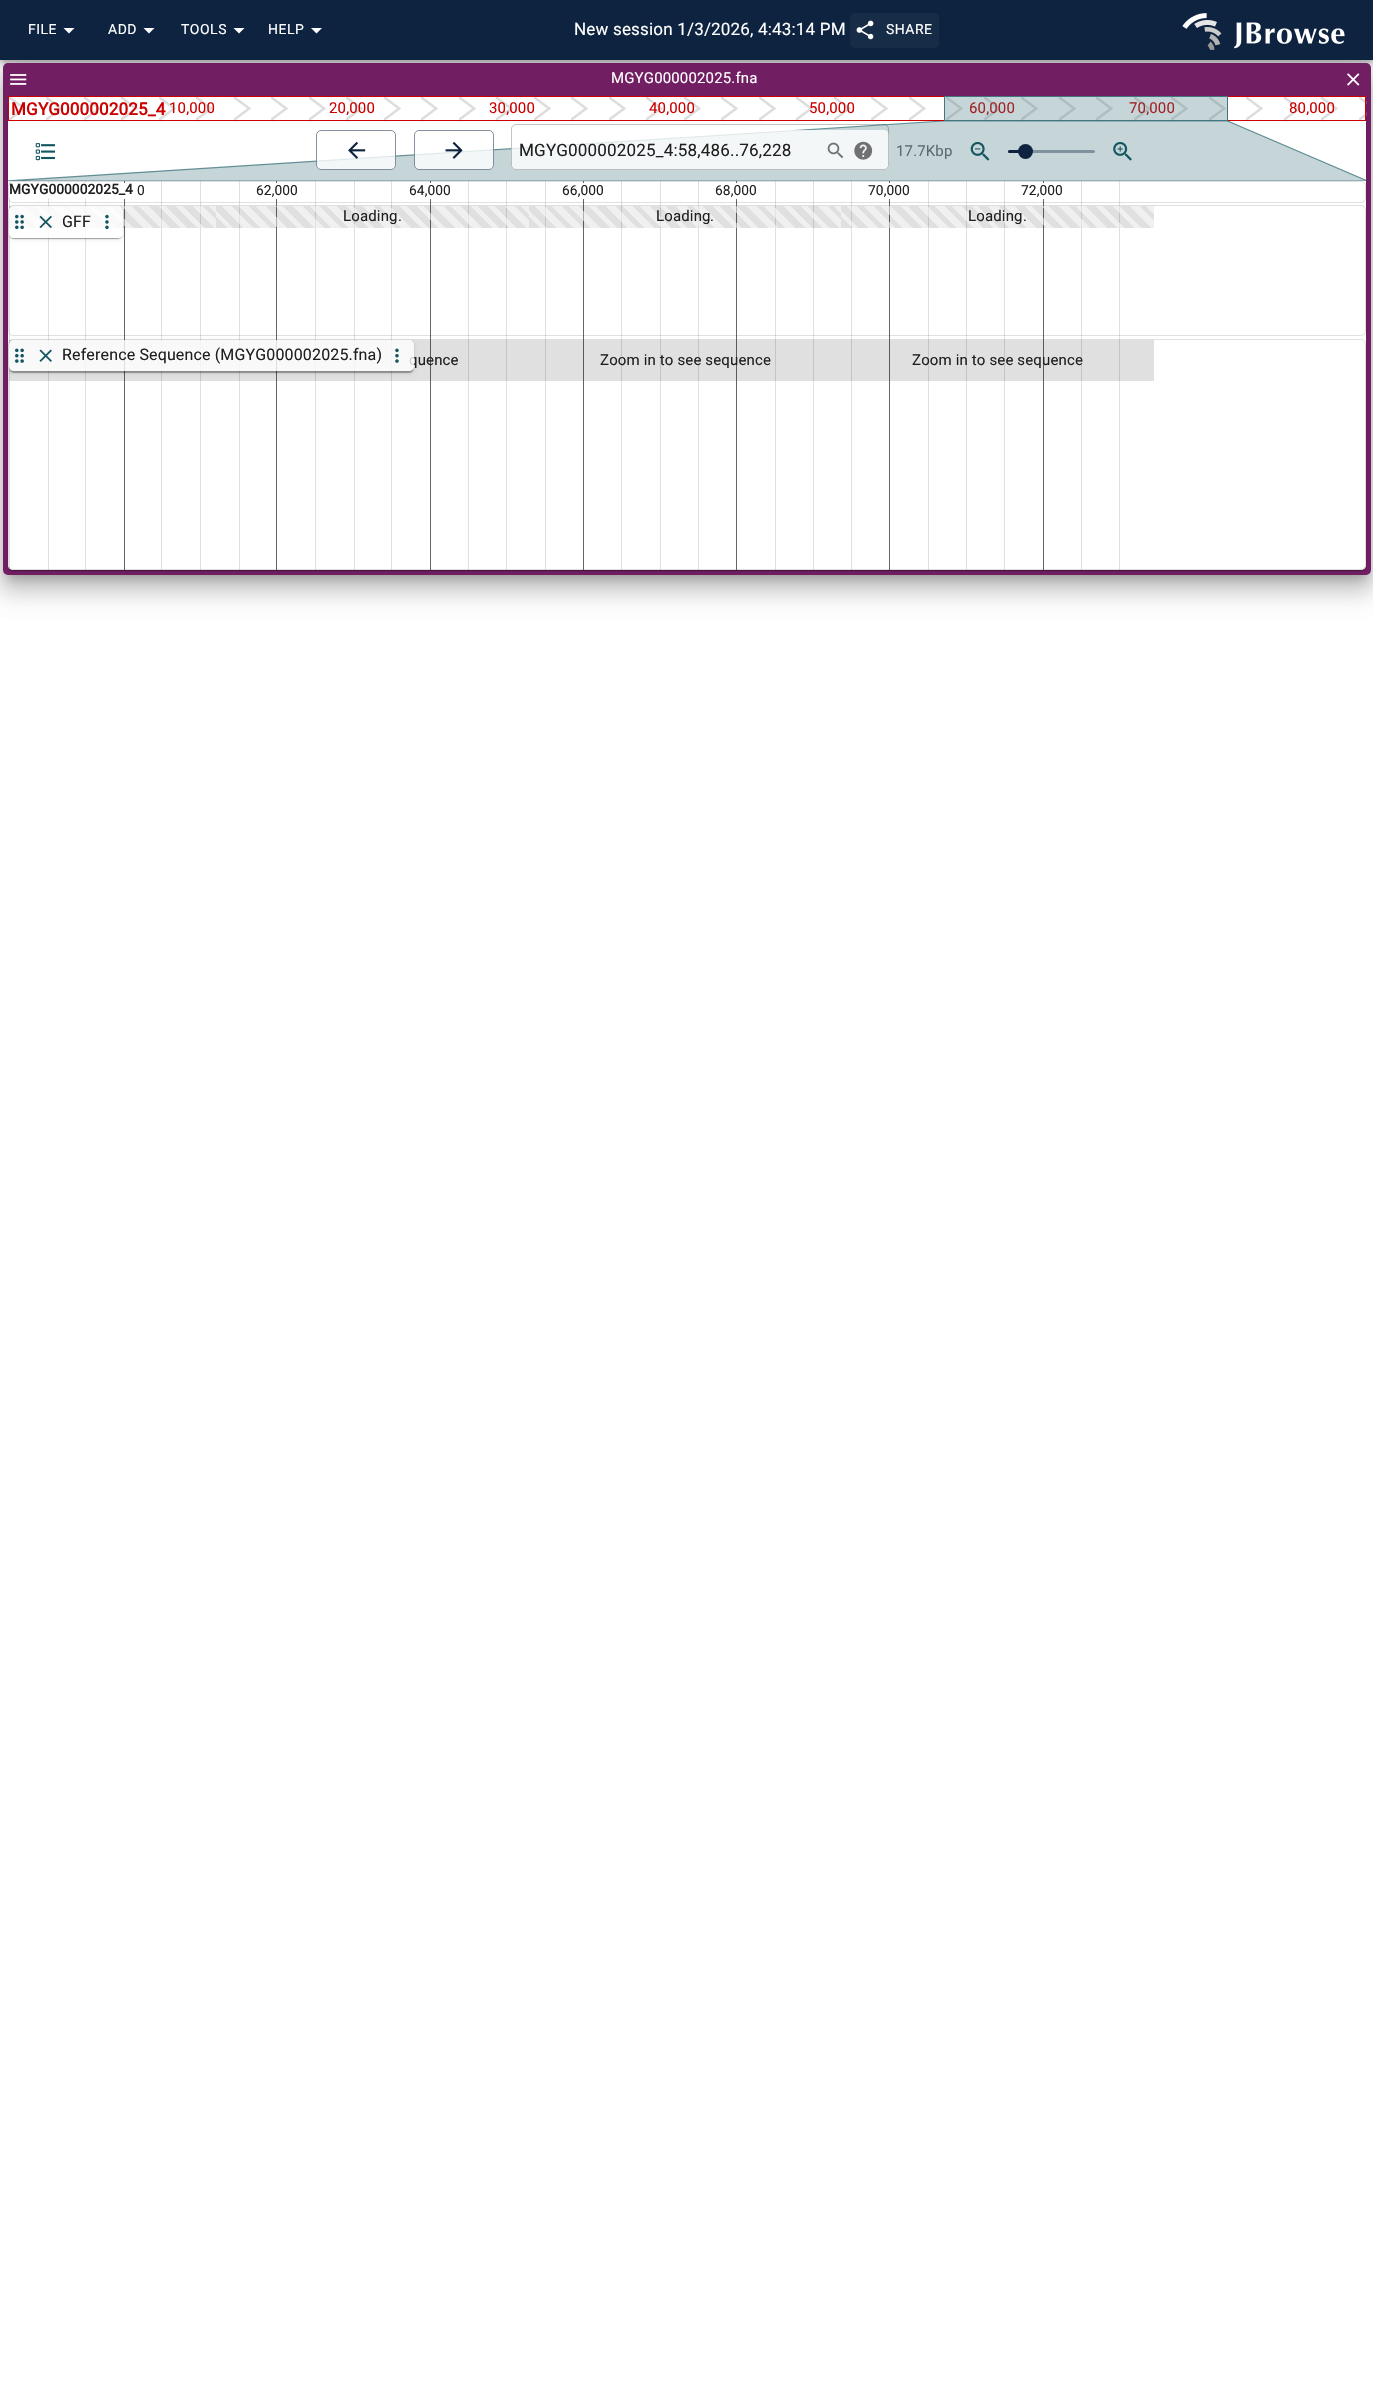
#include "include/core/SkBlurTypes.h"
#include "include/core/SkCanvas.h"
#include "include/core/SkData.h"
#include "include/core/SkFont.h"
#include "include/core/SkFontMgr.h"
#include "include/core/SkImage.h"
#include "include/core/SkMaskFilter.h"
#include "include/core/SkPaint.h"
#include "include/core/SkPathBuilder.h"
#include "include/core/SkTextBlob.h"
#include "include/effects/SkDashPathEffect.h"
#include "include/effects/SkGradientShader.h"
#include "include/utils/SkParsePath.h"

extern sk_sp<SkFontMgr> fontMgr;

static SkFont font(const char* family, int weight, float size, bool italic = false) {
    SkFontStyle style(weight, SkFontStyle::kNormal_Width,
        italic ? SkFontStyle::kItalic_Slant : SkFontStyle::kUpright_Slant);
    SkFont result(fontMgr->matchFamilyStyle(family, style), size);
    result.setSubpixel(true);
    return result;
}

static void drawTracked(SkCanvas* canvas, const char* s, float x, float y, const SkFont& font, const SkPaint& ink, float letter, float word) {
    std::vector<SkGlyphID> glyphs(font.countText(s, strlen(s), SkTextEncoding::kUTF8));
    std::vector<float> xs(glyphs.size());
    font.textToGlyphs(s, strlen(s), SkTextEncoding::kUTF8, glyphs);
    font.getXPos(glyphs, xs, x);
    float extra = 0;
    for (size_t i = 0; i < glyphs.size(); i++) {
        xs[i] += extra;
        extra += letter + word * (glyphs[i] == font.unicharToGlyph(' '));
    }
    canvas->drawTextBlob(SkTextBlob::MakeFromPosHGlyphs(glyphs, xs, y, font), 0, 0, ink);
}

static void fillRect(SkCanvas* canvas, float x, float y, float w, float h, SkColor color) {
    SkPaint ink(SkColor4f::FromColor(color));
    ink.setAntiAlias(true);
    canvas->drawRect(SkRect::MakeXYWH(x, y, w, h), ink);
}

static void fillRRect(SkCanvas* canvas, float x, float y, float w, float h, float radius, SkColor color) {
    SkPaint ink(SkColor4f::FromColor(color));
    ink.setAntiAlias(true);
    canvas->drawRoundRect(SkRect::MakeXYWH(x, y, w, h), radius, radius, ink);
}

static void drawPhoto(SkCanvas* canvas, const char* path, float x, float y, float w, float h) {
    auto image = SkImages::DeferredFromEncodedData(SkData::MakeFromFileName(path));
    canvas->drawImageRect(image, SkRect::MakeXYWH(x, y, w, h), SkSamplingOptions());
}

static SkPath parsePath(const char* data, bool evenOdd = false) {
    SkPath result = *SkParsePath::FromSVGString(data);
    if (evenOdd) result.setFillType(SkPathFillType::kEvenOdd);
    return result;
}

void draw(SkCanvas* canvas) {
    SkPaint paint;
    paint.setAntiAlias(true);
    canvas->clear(0xFFFFFFFF);
    paint.setColor(0x1F000000);
    paint.setMaskFilter(SkMaskFilter::MakeBlur(kNormal_SkBlurStyle, 6));
    canvas->drawRect(SkRect::MakeXYWH(0, 1, 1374, 60), paint);
    paint.setMaskFilter(nullptr);
    paint.setColor(0x24000000);
    paint.setMaskFilter(SkMaskFilter::MakeBlur(kNormal_SkBlurStyle, 3));
    canvas->drawRect(SkRect::MakeXYWH(0, 5, 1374, 60), paint);
    paint.setMaskFilter(nullptr);
    paint.setColor(0x33000000);
    paint.setMaskFilter(SkMaskFilter::MakeBlur(kNormal_SkBlurStyle, 2.5f));
    canvas->drawRect(SkRect::MakeXYWH(1, 4, 1372, 57), paint);
    paint.setMaskFilter(nullptr);
    fillRect(canvas, 0, 0, 1373, 60, 0xFF0D233F);
    canvas->save();
    canvas->clipRect(SkRect::MakeXYWH(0, 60, 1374, 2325));
    paint.setColor(0x1F000000);
    paint.setMaskFilter(SkMaskFilter::MakeBlur(kNormal_SkBlurStyle, 14));
    canvas->drawRoundRect(SkRect::MakeXYWH(-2, 64, 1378, 522), 10, 10, paint);
    paint.setMaskFilter(nullptr);
    canvas->restore();
    SkFont font1 = font("Roboto", 400, 14);
    paint.setColor(0xFFFFFFFF);
    drawTracked(canvas, "FILE", 28, 34, font1, paint, 0.5f, 0);
    canvas->drawPath(parsePath("M63.5 28L69 33.5L74.5 28Z"), paint);
    drawTracked(canvas, "ADD", 108, 34, font1, paint, 0.5f, 0);
    canvas->drawPath(parsePath("M143.5 28L149 33.5L154.5 28Z"), paint);
    drawTracked(canvas, "TOOLS", 181, 34, font1, paint, 0.5f, 0);
    canvas->drawPath(parsePath("M233.5 28L239 33.5L244.5 28Z"), paint);
    drawTracked(canvas, "HELP", 268, 34, font1, paint, 0.5f, 0);
    canvas->drawPath(parsePath("M311 28L316.5 33.5L322 28Z"), paint);
    SkFont font2 = font("Roboto", 400, 17.1f);
    drawTracked(canvas, "New session 1/3/2026, 4:43:14 PM", 574, 35, font2, paint, 0.15f, 0);
    paint.setColor(0x24000000);
    paint.setMaskFilter(SkMaskFilter::MakeBlur(kNormal_SkBlurStyle, 10.5f));
    canvas->drawRoundRect(SkRect::MakeXYWH(0, 75, 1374, 518), 8, 8, paint);
    paint.setMaskFilter(nullptr);
    fillRRect(canvas, 850, 13, 89, 35, 5, 0xFF172C47);
    drawPhoto(canvas, "assets/img1.png", 856, 20, 18, 20);
    paint.setColor(0xFFFFFFFF);
    drawTracked(canvas, "SHARE", 886, 34, font1, paint, 0.5f, 0);
    drawPhoto(canvas, "assets/img2.png", 1182, 13, 163, 37);
    paint.setColor(0x33000000);
    paint.setMaskFilter(SkMaskFilter::MakeBlur(kNormal_SkBlurStyle, 5));
    canvas->drawRect(SkRect::MakeXYWH(8, 76, 1358, 503), paint);
    paint.setMaskFilter(nullptr);
    fillRRect(canvas, 3, 63, 1368, 512, 5, 0xFF721E63);
    drawPhoto(canvas, "assets/img3.png", 10, 74, 17, 11);
    SkFont font3 = font("Roboto", 400, 15);
    paint.setColor(0xFFFFFFFF);
    drawTracked(canvas, "MGYG000002025.fna", 611, 83, font3, paint, 0.15f, 0);
    drawPhoto(canvas, "assets/img4.png", 1347, 73, 13, 13);
    paint.setColor(0x1F000000);
    paint.setMaskFilter(SkMaskFilter::MakeBlur(kNormal_SkBlurStyle, 2));
    canvas->drawRoundRect(SkRect::MakeXYWH(8, 98, 1358, 473), 5, 5, paint);
    paint.setMaskFilter(nullptr);
    paint.setColor(0x24000000);
    paint.setMaskFilter(SkMaskFilter::MakeBlur(kNormal_SkBlurStyle, 0.5f));
    canvas->drawRoundRect(SkRect::MakeXYWH(8, 98, 1358, 473), 5, 5, paint);
    paint.setMaskFilter(nullptr);
    paint.setColor(0x33000000);
    paint.setMaskFilter(SkMaskFilter::MakeBlur(kNormal_SkBlurStyle, 0.5f));
    canvas->drawRoundRect(SkRect::MakeXYWH(9, 100, 1356, 471), 4, 4, paint);
    paint.setMaskFilter(nullptr);
    fillRRect(canvas, 8, 96, 1358, 474, 5, 0xFFFFFFFF);
    fillRect(canvas, 9, 97, 1356, 1, 0xFFFFFFFF);
    drawPhoto(canvas, "assets/img5.png", 9, 97, 1358, 25);
    paint.setStroke(true);
    paint.setStrokeWidth(1);
    paint.setColor(0xFFCC0000);
    canvas->drawRect(SkRect::MakeXYWH(8.5f, 96.5f, 1357, 24), paint);
    paint.setStroke(false);
    drawTracked(canvas, "60,000", 969, 113, font3, paint, 0.15f, 0);
    drawTracked(canvas, "70,000", 1129, 113, font3, paint, 0.15f, 0);
    paint.setColor(0x4D42777F);
    canvas->drawRect(SkRect::MakeXYWH(944.5f, 96.5f, 283, 24), paint);
    paint.setStroke(true);
    paint.setColor(0xFF42777F);
    canvas->drawRect(SkRect::MakeXYWH(944.5f, 96.5f, 283, 24), paint);
    SkFont font4 = font("Roboto", 700, 17.1f);
    paint.setStroke(false);
    paint.setColor(0xFFCC0000);
    drawTracked(canvas, "MGYG000002025_4", 11, 115, font4, paint, 0.15f, 0);
    drawTracked(canvas, "10,000", 169, 113, font3, paint, 0.15f, 0);
    drawTracked(canvas, "20,000", 329, 113, font3, paint, 0.15f, 0);
    drawTracked(canvas, "30,000", 489, 113, font3, paint, 0.15f, 0);
    drawTracked(canvas, "40,000", 649, 113, font3, paint, 0.15f, 0);
    drawTracked(canvas, "50,000", 809, 113, font3, paint, 0.15f, 0);
    drawTracked(canvas, "80,000", 1289, 113, font3, paint, 0.15f, 0);
    paint.setColor(0xFF666666);
    drawTracked(canvas, "17.7Kbp", 896, 156, font3, paint, 0.15f, 0);
    paint.setColor(0x4D42777F);
    canvas->drawPath(parsePath("M8 181H1368L1228 121H944Z"), paint);
    canvas->save();
    canvas->clipRect(SkRect::MakeXYWH(8, 121, 1358, 60));
    paint.setStroke(true);
    paint.setStrokeWidth(1.2f);
    paint.setColor(0xCC42777F);
    canvas->drawPath(parsePath("M7.5 181H1367.5L1227.5 121H944Z"), paint);
    canvas->restore();
    drawPhoto(canvas, "assets/img6.png", 35, 143, 20, 18);
    fillRRect(canvas, 316, 130, 80, 40, 5, 0xCCFFFFFF);
    paint.setStrokeWidth(1);
    paint.setColor(0x800D233F);
    canvas->drawRoundRect(SkRect::MakeXYWH(316.5f, 130.5f, 79, 39), 4.5f, 4.5f, paint);
    drawPhoto(canvas, "assets/img7.png", 348, 141, 18, 18);
    fillRRect(canvas, 414, 130, 80, 40, 5, 0xCCFFFFFF);
    canvas->drawRoundRect(SkRect::MakeXYWH(414.5f, 130.5f, 79, 39), 4.5f, 4.5f, paint);
    drawPhoto(canvas, "assets/img8.png", 445, 141, 18, 18);
    fillRRect(canvas, 511, 130, 378, 40, 5, 0xCCFFFFFF);
    drawPhoto(canvas, "assets/img9.png", 827, 142, 17, 17);
    drawPhoto(canvas, "assets/img10.png", 854, 141, 19, 19);
    paint.setColor(0x3B000000);
    canvas->drawRoundRect(SkRect::MakeXYWH(511.5f, 124.5f, 377, 45), 4.5f, 4.5f, paint);
    paint.setStroke(false);
    paint.setColor(0xFF202020);
    drawTracked(canvas, "MGYG000002025_4:58,486..76,228", 519, 156, font2, paint, 0.15f, 0);
    drawPhoto(canvas, "assets/img11.png", 970, 142, 20, 19);
    fillRRect(canvas, 1008, 150, 87, 3, 1.5f, 0xFF80929E);
    fillRRect(canvas, 1008, 150, 17, 3, 1.5f, 0xFF0D233F);
    paint.setColor(0xFF0D233F);
    canvas->drawCircle(1025.5f, 151.5f, 7.5f, paint);
    drawPhoto(canvas, "assets/img12.png", 1113, 142, 19, 19);
    paint.setStroke(true);
    paint.setColor(0xFFE0E0E0);
    canvas->drawRoundRect(SkRect::MakeXYWH(8.5f, 181.5f, 1357, 21), 4.5f, 4.5f, paint);
    canvas->drawRoundRect(SkRect::MakeXYWH(8.5f, 205.5f, 1357, 130), 4.5f, 4.5f, paint);
    fillRRect(canvas, 8, 339, 1358, 231, 5, 0xFFFFFFFF);
    paint.setColor(0x1F000000);
    canvas->drawRoundRect(SkRect::MakeXYWH(8.5f, 339.5f, 1357, 230), 4.5f, 4.5f, paint);
    fillRect(canvas, 9, 181, 1, 389, 0x1F000000);
    fillRect(canvas, 48, 181, 1, 389, 0x1F000000);
    fillRect(canvas, 85, 181, 1, 389, 0x1F000000);
    fillRect(canvas, 124, 181, 1, 389, 0x99000000);
    fillRect(canvas, 161, 181, 1, 389, 0x1F000000);
    fillRect(canvas, 200, 181, 1, 389, 0x1F000000);
    fillRect(canvas, 239, 181, 1, 389, 0x1F000000);
    fillRect(canvas, 276, 181, 1, 389, 0x99000000);
    fillRect(canvas, 315, 181, 1, 389, 0x1F000000);
    fillRect(canvas, 354, 181, 1, 389, 0x1F000000);
    fillRect(canvas, 391, 181, 1, 389, 0x1F000000);
    fillRect(canvas, 430, 181, 1, 389, 0x99000000);
    fillRect(canvas, 468, 181, 1, 389, 0x1F000000);
    fillRect(canvas, 506, 181, 1, 389, 0x1F000000);
    fillRect(canvas, 545, 181, 1, 389, 0x1F000000);
    fillRect(canvas, 583, 181, 1, 389, 0x99000000);
    fillRect(canvas, 621, 181, 1, 389, 0x1F000000);
    fillRect(canvas, 660, 181, 1, 389, 0x1F000000);
    fillRect(canvas, 698, 181, 1, 389, 0x1F000000);
    fillRect(canvas, 736, 181, 1, 389, 0x99000000);
    fillRect(canvas, 775, 181, 1, 389, 0x1F000000);
    fillRect(canvas, 813, 181, 1, 389, 0x1F000000);
    fillRect(canvas, 851, 181, 1, 389, 0x1F000000);
    fillRect(canvas, 889, 181, 1, 389, 0x99000000);
    fillRect(canvas, 928, 181, 1, 389, 0x1F000000);
    fillRect(canvas, 966, 181, 1, 389, 0x1F000000);
    fillRect(canvas, 1004, 181, 1, 389, 0x1F000000);
    fillRect(canvas, 1043, 181, 1, 389, 0x99000000);
    fillRect(canvas, 1081, 181, 1, 389, 0x1F000000);
    fillRect(canvas, 1119, 181, 1, 389, 0x1F000000);
    fillRect(canvas, 124, 183, 1, 16, 0xFFFFFFFF);
    canvas->save();
    canvas->clipPath(parsePath("M13 183H1361C1363 183 1365 185 1365 187V197C1365 199 1363 201 1361 201H13C11 201 9 199 9 197V187C9 185 11 183 13 183Z"), true);
    paint.setStroke(false);
    paint.setColor(0xFFFFFFFF);
    canvas->drawPath(parsePath("M13 183H133V198H9V187C9 185 11 183 13 183Z"), paint);
    canvas->restore();
    SkFont font5 = font("Roboto", 700, 13.75f);
    paint.setColor(0xFF202020);
    drawTracked(canvas, "MGYG000002025_4", 9, 194, font5, paint, 0.1f, 0);
    SkFont font6 = font("Roboto", 400, 13.75f);
    drawTracked(canvas, "0", 137, 195, font6, paint, 0.1f, 0);
    fillRect(canvas, 276, 183, 1, 16, 0xFFFFFFFF);
    drawTracked(canvas, "62,000", 256, 195, font6, paint, 0.1f, 0);
    fillRect(canvas, 430, 183, 1, 16, 0xFFFFFFFF);
    drawTracked(canvas, "64,000", 409, 195, font6, paint, 0.1f, 0);
    fillRect(canvas, 583, 183, 1, 16, 0xFFFFFFFF);
    drawTracked(canvas, "66,000", 562, 195, font6, paint, 0.1f, 0);
    fillRect(canvas, 736, 183, 1, 16, 0xFFFFFFFF);
    drawTracked(canvas, "68,000", 715, 195, font6, paint, 0.1f, 0);
    fillRect(canvas, 889, 183, 1, 16, 0xFFFFFFFF);
    drawTracked(canvas, "70,000", 868, 195, font6, paint, 0.1f, 0);
    fillRect(canvas, 1043, 183, 1, 16, 0xFFFFFFFF);
    drawTracked(canvas, "72,000", 1021, 195, font6, paint, 0.1f, 0);
    fillRect(canvas, 9, 206, 207, 22, 0x1F000000);
    {
        const SkColor colors[] = {0x00000000, 0x00FFFFFF, 0x80FFFFFF, 0x80FFFFFF, 0x00FFFFFF, 0x00FFFFFF, 0x80FFFFFF, 0x80FFFFFF, 0x00FFFFFF, 0x00FFFFFF, 0x80FFFFFF, 0x80FFFFFF, 0x00FFFFFF, 0x00FFFFFF, 0x80FFFFFF, 0x80FFFFFF, 0x00FFFFFF, 0x00FFFFFF, 0x80FFFFFF, 0x80FFFFFF, 0x00FFFFFF, 0x00FFFFFF, 0x80FFFFFF, 0x80FFFFFF, 0x00FFFFFF, 0x00FFFFFF, 0x80FFFFFF, 0x80FFFFFF, 0x00FFFFFF, 0x00FFFFFF, 0x80FFFFFF, 0x80FFFFFF, 0x00FFFFFF, 0x00FFFFFF, 0x80FFFFFF, 0x80FFFFFF, 0x00FFFFFF, 0x00FFFFFF, 0x80FFFFFF, 0x80FFFFFF, 0x00FFFFFF, 0x00FFFFFF, 0x80FFFFFF, 0x80FFFFFF, 0x00FFFFFF, 0x00FFFFFF, 0x80FFFFFF, 0x80FFFFFF, 0x00FFFFFF, 0x00FFFFFF, 0x80FFFFFF, 0x80FFFFFF, 0x00FFFFFF, 0x00FFFFFF, 0x80FFFFFF, 0x80FFFFFF, 0x00FFFFFF, 0x00FFFFFF, 0x80FFFFFF, 0x80FFFFFF, 0x00FFFFFF, 0x00FFFFFF, 0x80FFFFFF, 0x80FFFFFF, 0x00FFFFFF, 0x00FFFFFF, 0x80FFFFFF, 0x80FFFFFF, 0x00FFFFFF, 0x00FFFFFF, 0x80FFFFFF, 0x80FFFFFF, 0x00FFFFFF, 0x00FFFFFF, 0x80FFFFFF, 0x80FFFFFF};
        const float stops[] = {0, 0.03f, 0.03f, 0.05f, 0.05f, 0.08f, 0.08f, 0.11f, 0.11f, 0.13f, 0.13f, 0.16f, 0.16f, 0.18f, 0.18f, 0.21f, 0.21f, 0.24f, 0.24f, 0.26f, 0.26f, 0.29f, 0.29f, 0.32f, 0.32f, 0.34f, 0.34f, 0.37f, 0.37f, 0.39f, 0.39f, 0.42f, 0.42f, 0.45f, 0.45f, 0.47f, 0.47f, 0.5f, 0.5f, 0.53f, 0.53f, 0.55f, 0.55f, 0.58f, 0.58f, 0.61f, 0.61f, 0.63f, 0.63f, 0.66f, 0.66f, 0.68f, 0.68f, 0.71f, 0.71f, 0.74f, 0.74f, 0.76f, 0.76f, 0.79f, 0.79f, 0.82f, 0.82f, 0.84f, 0.84f, 0.87f, 0.87f, 0.89f, 0.89f, 0.92f, 0.92f, 0.95f, 0.95f, 0.97f, 0.97f, 1};
        const SkPoint ends[] = {{-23, 300}, {145, 132}};
        paint.setShader(SkGradientShader::MakeLinear(ends, colors, stops, 76, SkTileMode::kClamp));
        paint.setAlpha(255);
    }
    canvas->drawRect(SkRect::MakeXYWH(9, 206, 207, 22), paint);
    canvas->save();
    canvas->clipPath(parsePath("M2 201H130V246H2ZM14 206H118C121 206 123 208 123 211V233C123 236 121 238 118 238H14C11 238 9 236 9 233V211C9 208 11 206 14 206Z", true), true);
    paint.setShader(nullptr);
    paint.setColor(0x1F000000);
    paint.setMaskFilter(SkMaskFilter::MakeBlur(kNormal_SkBlurStyle, 2));
    canvas->drawRoundRect(SkRect::MakeXYWH(9, 208, 114, 31), 5, 5, paint);
    paint.setMaskFilter(nullptr);
    canvas->restore();
    canvas->save();
    canvas->clipPath(parsePath("M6 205H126V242H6ZM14 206H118C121 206 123 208 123 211V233C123 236 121 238 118 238H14C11 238 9 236 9 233V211C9 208 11 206 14 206Z", true), true);
    paint.setColor(0x24000000);
    paint.setMaskFilter(SkMaskFilter::MakeBlur(kNormal_SkBlurStyle, 0.5f));
    canvas->drawRoundRect(SkRect::MakeXYWH(9, 208, 114, 31), 5, 5, paint);
    paint.setMaskFilter(nullptr);
    canvas->restore();
    canvas->save();
    canvas->clipPath(parsePath("M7 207H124V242H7ZM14 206H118C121 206 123 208 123 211V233C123 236 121 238 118 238H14C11 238 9 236 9 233V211C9 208 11 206 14 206Z", true), true);
    paint.setColor(0x33000000);
    paint.setMaskFilter(SkMaskFilter::MakeBlur(kNormal_SkBlurStyle, 0.5f));
    canvas->drawRoundRect(SkRect::MakeXYWH(10, 210, 111, 29), 4, 4, paint);
    paint.setMaskFilter(nullptr);
    canvas->restore();
    fillRRect(canvas, 9, 206, 114, 32, 5, 0xCCFFFFFF);
    drawPhoto(canvas, "assets/img13.png", 15, 214, 9, 16);
    drawPhoto(canvas, "assets/img14.png", 39, 215, 13, 14);
    SkFont font7 = font("Roboto", 400, 16);
    paint.setColor(0xFF202020);
    drawTracked(canvas, "GFF", 62, 227, font7, paint, 0.15f, 0);
    drawPhoto(canvas, "assets/img15.png", 105, 214, 4, 16);
    fillRect(canvas, 216, 206, 313, 22, 0x1F000000);
    {
        const SkColor colors[] = {0x00000000, 0x00FFFFFF, 0x80FFFFFF, 0x80FFFFFF, 0x00FFFFFF, 0x00FFFFFF, 0x80FFFFFF, 0x80FFFFFF, 0x00FFFFFF, 0x00FFFFFF, 0x80FFFFFF, 0x80FFFFFF, 0x00FFFFFF, 0x00FFFFFF, 0x80FFFFFF, 0x80FFFFFF, 0x00FFFFFF, 0x00FFFFFF, 0x80FFFFFF, 0x80FFFFFF, 0x00FFFFFF, 0x00FFFFFF, 0x80FFFFFF, 0x80FFFFFF, 0x00FFFFFF, 0x00FFFFFF, 0x80FFFFFF, 0x80FFFFFF, 0x00FFFFFF, 0x00FFFFFF, 0x80FFFFFF, 0x80FFFFFF, 0x00FFFFFF, 0x00FFFFFF, 0x80FFFFFF, 0x80FFFFFF, 0x00FFFFFF, 0x00FFFFFF, 0x80FFFFFF, 0x80FFFFFF, 0x00FFFFFF, 0x00FFFFFF, 0x80FFFFFF, 0x80FFFFFF, 0x00FFFFFF, 0x00FFFFFF, 0x80FFFFFF, 0x80FFFFFF, 0x00FFFFFF, 0x00FFFFFF, 0x80FFFFFF, 0x80FFFFFF, 0x00FFFFFF, 0x00FFFFFF, 0x80FFFFFF, 0x80FFFFFF, 0x00FFFFFF, 0x00FFFFFF, 0x80FFFFFF, 0x80FFFFFF, 0x00FFFFFF, 0x00FFFFFF, 0x80FFFFFF, 0x80FFFFFF, 0x00FFFFFF, 0x00FFFFFF, 0x80FFFFFF, 0x80FFFFFF, 0x00FFFFFF, 0x00FFFFFF, 0x80FFFFFF, 0x80FFFFFF, 0x00FFFFFF, 0x00FFFFFF, 0x80FFFFFF, 0x80FFFFFF};
        const float stops[] = {0, 0.03f, 0.03f, 0.05f, 0.05f, 0.08f, 0.08f, 0.11f, 0.11f, 0.13f, 0.13f, 0.16f, 0.16f, 0.18f, 0.18f, 0.21f, 0.21f, 0.24f, 0.24f, 0.26f, 0.26f, 0.29f, 0.29f, 0.32f, 0.32f, 0.34f, 0.34f, 0.37f, 0.37f, 0.39f, 0.39f, 0.42f, 0.42f, 0.45f, 0.45f, 0.47f, 0.47f, 0.5f, 0.5f, 0.53f, 0.53f, 0.55f, 0.55f, 0.58f, 0.58f, 0.61f, 0.61f, 0.63f, 0.63f, 0.66f, 0.66f, 0.68f, 0.68f, 0.71f, 0.71f, 0.74f, 0.74f, 0.76f, 0.76f, 0.79f, 0.79f, 0.82f, 0.82f, 0.84f, 0.84f, 0.87f, 0.87f, 0.89f, 0.89f, 0.92f, 0.92f, 0.95f, 0.95f, 0.97f, 0.97f, 1};
        const SkPoint ends[] = {{289, 300}, {457, 132}};
        paint.setShader(SkGradientShader::MakeLinear(ends, colors, stops, 76, SkTileMode::kClamp));
        paint.setAlpha(255);
    }
    canvas->drawRect(SkRect::MakeXYWH(216, 206, 313, 22), paint);
    paint.setShader(nullptr);
    paint.setColor(0xFF202020);
    drawTracked(canvas, "Loading", 343, 221, font3, paint, 0.15f, 0);
    drawTracked(canvas, ".", 398, 221, font3, paint, 0.15f, 0);
    fillRect(canvas, 529, 206, 312, 22, 0x1F000000);
    {
        const SkColor colors[] = {0x00000000, 0x00FFFFFF, 0x80FFFFFF, 0x80FFFFFF, 0x00FFFFFF, 0x00FFFFFF, 0x80FFFFFF, 0x80FFFFFF, 0x00FFFFFF, 0x00FFFFFF, 0x80FFFFFF, 0x80FFFFFF, 0x00FFFFFF, 0x00FFFFFF, 0x80FFFFFF, 0x80FFFFFF, 0x00FFFFFF, 0x00FFFFFF, 0x80FFFFFF, 0x80FFFFFF, 0x00FFFFFF, 0x00FFFFFF, 0x80FFFFFF, 0x80FFFFFF, 0x00FFFFFF, 0x00FFFFFF, 0x80FFFFFF, 0x80FFFFFF, 0x00FFFFFF, 0x00FFFFFF, 0x80FFFFFF, 0x80FFFFFF, 0x00FFFFFF, 0x00FFFFFF, 0x80FFFFFF, 0x80FFFFFF, 0x00FFFFFF, 0x00FFFFFF, 0x80FFFFFF, 0x80FFFFFF, 0x00FFFFFF, 0x00FFFFFF, 0x80FFFFFF, 0x80FFFFFF, 0x00FFFFFF, 0x00FFFFFF, 0x80FFFFFF, 0x80FFFFFF, 0x00FFFFFF, 0x00FFFFFF, 0x80FFFFFF, 0x80FFFFFF, 0x00FFFFFF, 0x00FFFFFF, 0x80FFFFFF, 0x80FFFFFF, 0x00FFFFFF, 0x00FFFFFF, 0x80FFFFFF, 0x80FFFFFF, 0x00FFFFFF, 0x00FFFFFF, 0x80FFFFFF, 0x80FFFFFF, 0x00FFFFFF, 0x00FFFFFF, 0x80FFFFFF, 0x80FFFFFF, 0x00FFFFFF, 0x00FFFFFF, 0x80FFFFFF, 0x80FFFFFF, 0x00FFFFFF, 0x00FFFFFF, 0x80FFFFFF, 0x80FFFFFF};
        const float stops[] = {0, 0.03f, 0.03f, 0.05f, 0.05f, 0.08f, 0.08f, 0.11f, 0.11f, 0.13f, 0.13f, 0.16f, 0.16f, 0.18f, 0.18f, 0.21f, 0.21f, 0.24f, 0.24f, 0.26f, 0.26f, 0.29f, 0.29f, 0.32f, 0.32f, 0.34f, 0.34f, 0.37f, 0.37f, 0.39f, 0.39f, 0.42f, 0.42f, 0.45f, 0.45f, 0.47f, 0.47f, 0.5f, 0.5f, 0.53f, 0.53f, 0.55f, 0.55f, 0.58f, 0.58f, 0.61f, 0.61f, 0.63f, 0.63f, 0.66f, 0.66f, 0.68f, 0.68f, 0.71f, 0.71f, 0.74f, 0.74f, 0.76f, 0.76f, 0.79f, 0.79f, 0.82f, 0.82f, 0.84f, 0.84f, 0.87f, 0.87f, 0.89f, 0.89f, 0.92f, 0.92f, 0.95f, 0.95f, 0.97f, 0.97f, 1};
        const SkPoint ends[] = {{602, 300}, {770, 132}};
        paint.setShader(SkGradientShader::MakeLinear(ends, colors, stops, 76, SkTileMode::kClamp));
        paint.setAlpha(255);
    }
    canvas->drawRect(SkRect::MakeXYWH(529, 206, 312, 22), paint);
    paint.setShader(nullptr);
    paint.setColor(0xFF202020);
    drawTracked(canvas, "Loading", 656, 221, font3, paint, 0.15f, 0);
    drawTracked(canvas, ".", 710, 221, font3, paint, 0.15f, 0);
    fillRect(canvas, 841, 206, 313, 22, 0x1F000000);
    {
        const SkColor colors[] = {0x00000000, 0x00FFFFFF, 0x80FFFFFF, 0x80FFFFFF, 0x00FFFFFF, 0x00FFFFFF, 0x80FFFFFF, 0x80FFFFFF, 0x00FFFFFF, 0x00FFFFFF, 0x80FFFFFF, 0x80FFFFFF, 0x00FFFFFF, 0x00FFFFFF, 0x80FFFFFF, 0x80FFFFFF, 0x00FFFFFF, 0x00FFFFFF, 0x80FFFFFF, 0x80FFFFFF, 0x00FFFFFF, 0x00FFFFFF, 0x80FFFFFF, 0x80FFFFFF, 0x00FFFFFF, 0x00FFFFFF, 0x80FFFFFF, 0x80FFFFFF, 0x00FFFFFF, 0x00FFFFFF, 0x80FFFFFF, 0x80FFFFFF, 0x00FFFFFF, 0x00FFFFFF, 0x80FFFFFF, 0x80FFFFFF, 0x00FFFFFF, 0x00FFFFFF, 0x80FFFFFF, 0x80FFFFFF, 0x00FFFFFF, 0x00FFFFFF, 0x80FFFFFF, 0x80FFFFFF, 0x00FFFFFF, 0x00FFFFFF, 0x80FFFFFF, 0x80FFFFFF, 0x00FFFFFF, 0x00FFFFFF, 0x80FFFFFF, 0x80FFFFFF, 0x00FFFFFF, 0x00FFFFFF, 0x80FFFFFF, 0x80FFFFFF, 0x00FFFFFF, 0x00FFFFFF, 0x80FFFFFF, 0x80FFFFFF, 0x00FFFFFF, 0x00FFFFFF, 0x80FFFFFF, 0x80FFFFFF, 0x00FFFFFF, 0x00FFFFFF, 0x80FFFFFF, 0x80FFFFFF, 0x00FFFFFF, 0x00FFFFFF, 0x80FFFFFF, 0x80FFFFFF, 0x00FFFFFF, 0x00FFFFFF, 0x80FFFFFF, 0x80FFFFFF};
        const float stops[] = {0, 0.03f, 0.03f, 0.05f, 0.05f, 0.08f, 0.08f, 0.11f, 0.11f, 0.13f, 0.13f, 0.16f, 0.16f, 0.18f, 0.18f, 0.21f, 0.21f, 0.24f, 0.24f, 0.26f, 0.26f, 0.29f, 0.29f, 0.32f, 0.32f, 0.34f, 0.34f, 0.37f, 0.37f, 0.39f, 0.39f, 0.42f, 0.42f, 0.45f, 0.45f, 0.47f, 0.47f, 0.5f, 0.5f, 0.53f, 0.53f, 0.55f, 0.55f, 0.58f, 0.58f, 0.61f, 0.61f, 0.63f, 0.63f, 0.66f, 0.66f, 0.68f, 0.68f, 0.71f, 0.71f, 0.74f, 0.74f, 0.76f, 0.76f, 0.79f, 0.79f, 0.82f, 0.82f, 0.84f, 0.84f, 0.87f, 0.87f, 0.89f, 0.89f, 0.92f, 0.92f, 0.95f, 0.95f, 0.97f, 0.97f, 1};
        const SkPoint ends[] = {{914, 300}, {1082, 132}};
        paint.setShader(SkGradientShader::MakeLinear(ends, colors, stops, 76, SkTileMode::kClamp));
        paint.setAlpha(255);
    }
    canvas->drawRect(SkRect::MakeXYWH(841, 206, 313, 22), paint);
    paint.setShader(nullptr);
    paint.setColor(0xFF202020);
    drawTracked(canvas, "Loading", 968, 221, font3, paint, 0.15f, 0);
    drawTracked(canvas, ".", 1023, 221, font3, paint, 0.15f, 0);
    fillRect(canvas, 9, 340, 207, 41, 0x1F000000);
    fillRect(canvas, 216, 340, 313, 41, 0x1F000000);
    canvas->save();
    canvas->clipPath(parsePath("M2 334H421V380H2ZM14 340H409C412 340 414 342 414 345V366C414 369 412 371 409 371H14C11 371 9 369 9 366V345C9 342 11 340 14 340Z", true), true);
    paint.setColor(0x1F000000);
    paint.setMaskFilter(SkMaskFilter::MakeBlur(kNormal_SkBlurStyle, 2));
    canvas->drawRoundRect(SkRect::MakeXYWH(9, 341, 405, 32), 5, 5, paint);
    paint.setMaskFilter(nullptr);
    canvas->restore();
    canvas->save();
    canvas->clipPath(parsePath("M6 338H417V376H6ZM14 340H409C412 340 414 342 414 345V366C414 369 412 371 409 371H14C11 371 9 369 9 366V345C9 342 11 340 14 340Z", true), true);
    paint.setColor(0x24000000);
    paint.setMaskFilter(SkMaskFilter::MakeBlur(kNormal_SkBlurStyle, 0.5f));
    canvas->drawRoundRect(SkRect::MakeXYWH(9, 341, 405, 32), 5, 5, paint);
    paint.setMaskFilter(nullptr);
    canvas->restore();
    canvas->save();
    canvas->clipPath(parsePath("M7 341H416V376H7ZM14 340H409C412 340 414 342 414 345V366C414 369 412 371 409 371H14C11 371 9 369 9 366V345C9 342 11 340 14 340Z", true), true);
    paint.setColor(0x33000000);
    paint.setMaskFilter(SkMaskFilter::MakeBlur(kNormal_SkBlurStyle, 0.5f));
    canvas->drawRoundRect(SkRect::MakeXYWH(10, 344, 403, 29), 4, 4, paint);
    paint.setMaskFilter(nullptr);
    canvas->restore();
    paint.setColor(0xFF202020);
    drawTracked(canvas, "quence", 409, 365, font3, paint, 0.15f, 0);
    fillRRect(canvas, 9, 340, 405, 31, 5, 0xCCFFFFFF);
    drawPhoto(canvas, "assets/img16.png", 15, 348, 9, 15);
    drawPhoto(canvas, "assets/img17.png", 39, 349, 13, 13);
    drawTracked(canvas, "Reference Sequence (MGYG000002025.fna)", 62, 360, font7, paint, 0.15f, 0);
    drawPhoto(canvas, "assets/img18.png", 395, 348, 4, 15);
    fillRect(canvas, 529, 340, 312, 41, 0x1F000000);
    drawTracked(canvas, "Zoom in to see sequence", 600, 365, font3, paint, 0.15f, 0);
    fillRect(canvas, 841, 340, 313, 41, 0x1F000000);
    drawTracked(canvas, "Zoom in to see sequence", 912, 365, font3, paint, 0.15f, 0);
}
